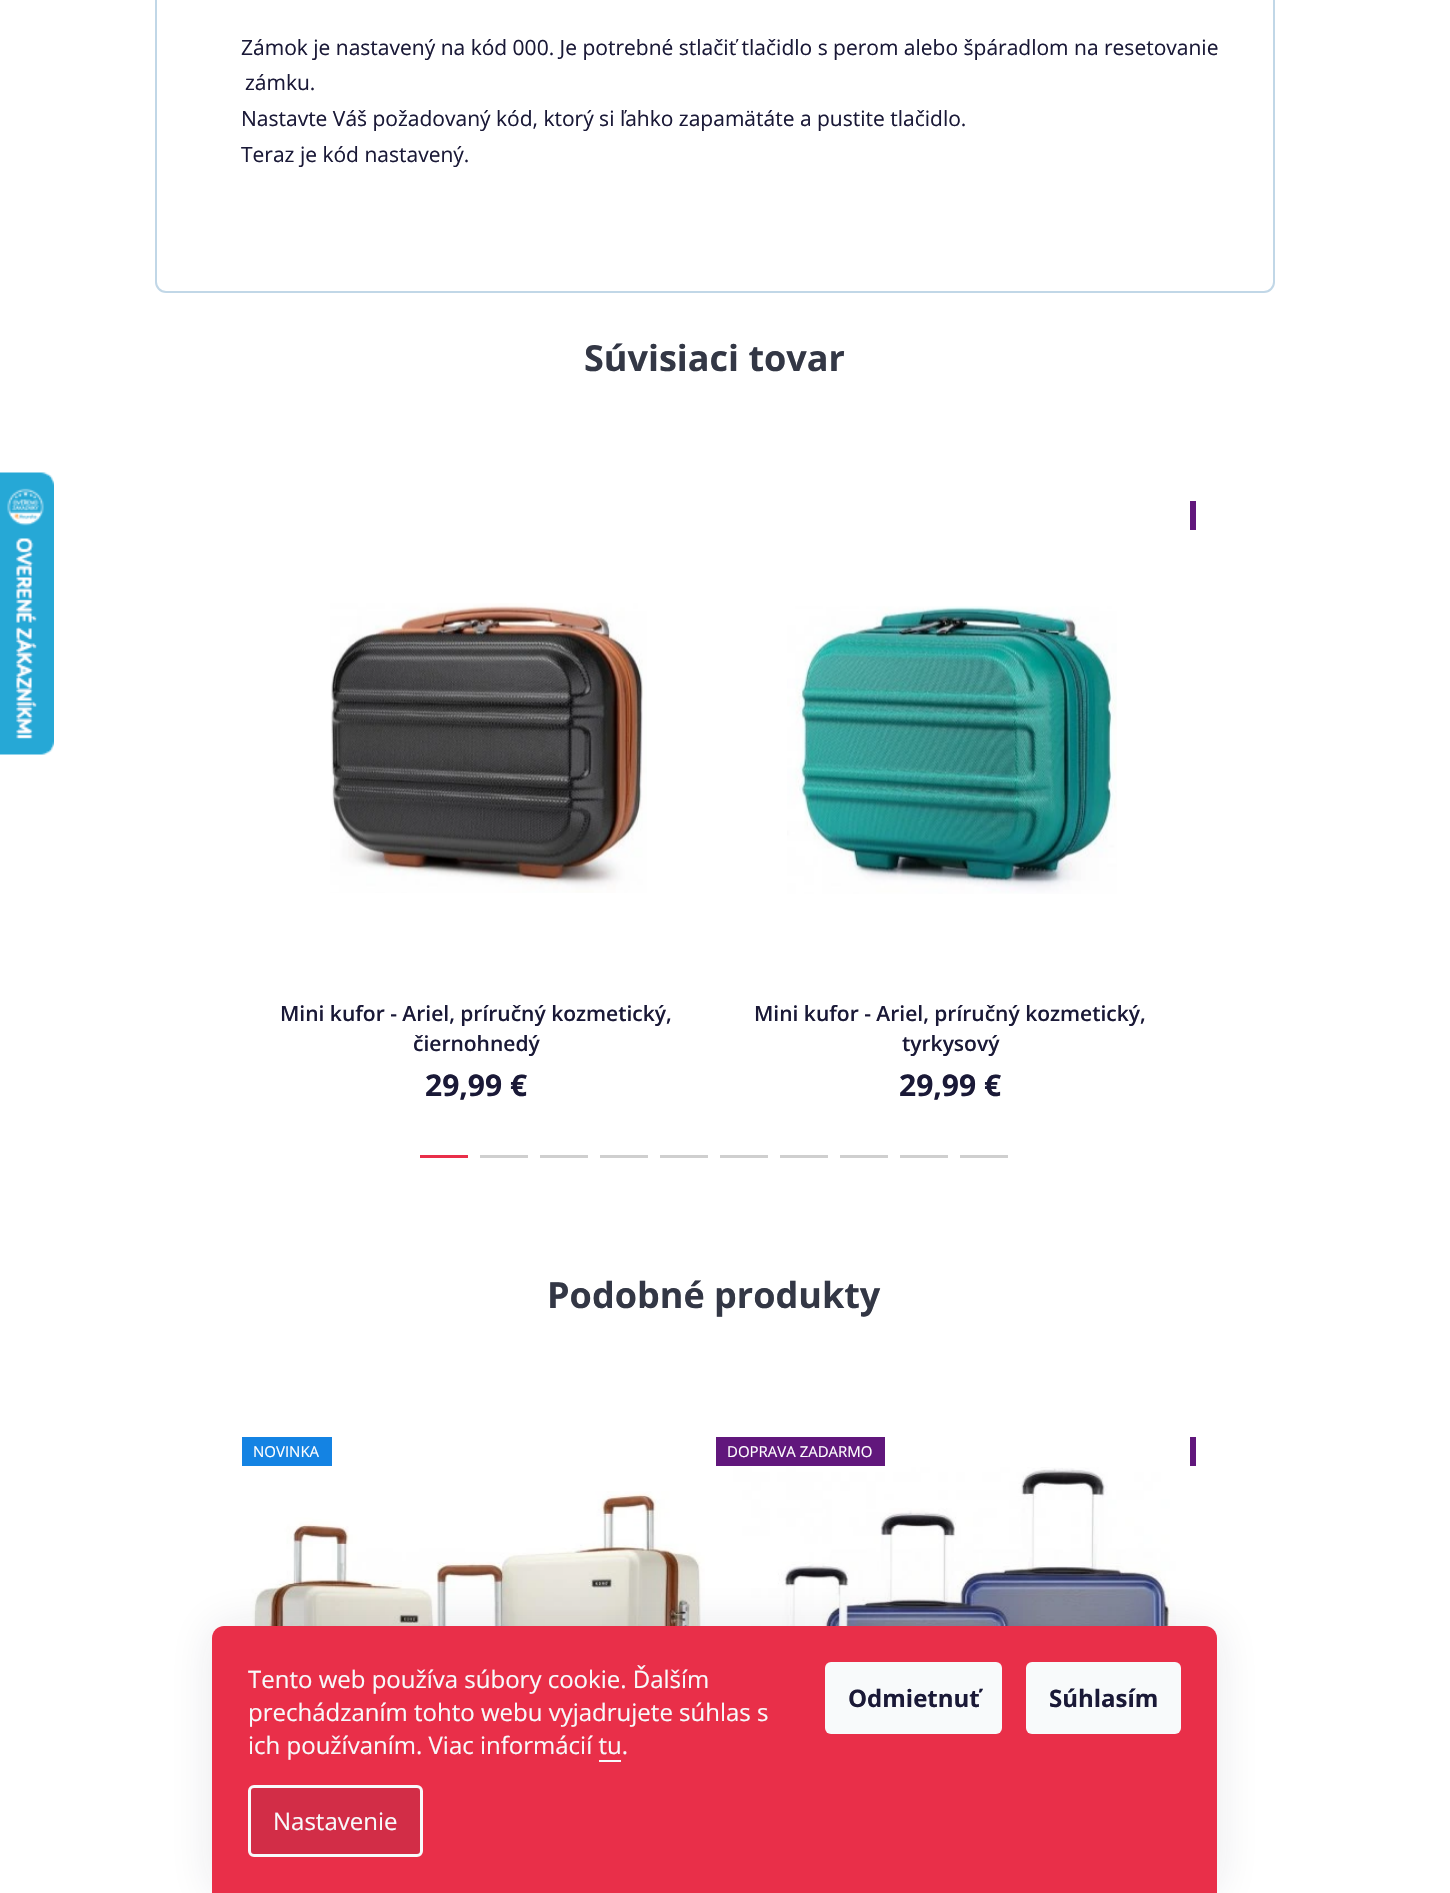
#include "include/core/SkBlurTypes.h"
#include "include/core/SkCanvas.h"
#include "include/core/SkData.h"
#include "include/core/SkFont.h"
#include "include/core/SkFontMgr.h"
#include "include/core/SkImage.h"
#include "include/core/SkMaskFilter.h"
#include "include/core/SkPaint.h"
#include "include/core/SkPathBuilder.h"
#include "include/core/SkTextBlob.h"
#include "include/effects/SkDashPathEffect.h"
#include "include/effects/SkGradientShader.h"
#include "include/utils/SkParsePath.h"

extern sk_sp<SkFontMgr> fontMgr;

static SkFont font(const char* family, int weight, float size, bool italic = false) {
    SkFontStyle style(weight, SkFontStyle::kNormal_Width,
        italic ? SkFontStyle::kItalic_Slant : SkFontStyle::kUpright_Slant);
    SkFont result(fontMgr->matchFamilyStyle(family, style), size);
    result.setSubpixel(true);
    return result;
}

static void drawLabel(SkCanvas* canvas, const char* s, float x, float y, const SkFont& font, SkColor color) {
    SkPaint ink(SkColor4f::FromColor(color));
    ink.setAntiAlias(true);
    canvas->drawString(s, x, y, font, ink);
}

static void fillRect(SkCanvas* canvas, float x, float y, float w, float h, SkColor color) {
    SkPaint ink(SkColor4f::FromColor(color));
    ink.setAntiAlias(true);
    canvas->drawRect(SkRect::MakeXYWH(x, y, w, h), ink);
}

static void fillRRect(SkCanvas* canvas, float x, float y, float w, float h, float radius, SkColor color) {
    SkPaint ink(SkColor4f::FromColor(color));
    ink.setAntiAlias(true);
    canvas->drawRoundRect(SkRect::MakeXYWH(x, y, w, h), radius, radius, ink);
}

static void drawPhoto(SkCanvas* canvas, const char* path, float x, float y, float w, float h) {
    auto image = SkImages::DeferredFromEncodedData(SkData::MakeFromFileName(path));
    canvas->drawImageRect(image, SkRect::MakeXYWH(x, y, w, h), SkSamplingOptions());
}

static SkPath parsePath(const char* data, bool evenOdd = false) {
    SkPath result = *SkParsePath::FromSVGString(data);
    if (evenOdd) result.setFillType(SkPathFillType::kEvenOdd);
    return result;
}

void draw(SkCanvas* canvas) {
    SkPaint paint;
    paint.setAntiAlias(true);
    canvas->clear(0xFFFFFFFF);
    drawPhoto(canvas, "assets/img1.png", 0, 472, 54, 283);
    paint.setStroke(true);
    paint.setStrokeWidth(2);
    paint.setColor(0xFFC1D7E7);
    canvas->drawRoundRect(SkRect::MakeXYWH(156, -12, 1118, 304), 10, 10, paint);
    SkFont font1 = font("Open Sans", 400, 21);
    drawLabel(canvas, "Zámok je nastavený na kód 000. Je potrebné stlačiť tlačidlo s perom alebo špáradlom na resetovanie", 241, 55, font1, 0xFF1A1937);
    drawLabel(canvas, "zámku.", 245, 90, font1, 0xFF1A1937);
    drawLabel(canvas, "Nastavte Váš požadovaný kód, ktorý si ľahko zapamätáte a pustite tlačidlo.", 241, 126, font1, 0xFF1A1937);
    drawLabel(canvas, "Teraz je kód nastavený.", 241, 162, font1, 0xFF1A1937);
    SkFont font2 = font("Open Sans", 700, 36);
    drawLabel(canvas, "Súvisiaci tovar", 584, 371, font2, 0xFF333745);
    fillRect(canvas, 1190, 501, 6, 29, 0xFF61177C);
    drawPhoto(canvas, "assets/img2.png", 330, 603, 317, 290);
    SkFont font3 = font("Open Sans", 600, 21);
    drawLabel(canvas, "Mini kufor - Ariel, príručný kozmetický,", 280, 1021, font3, 0xFF1A1937);
    drawLabel(canvas, "čiernohnedý", 413, 1051, font3, 0xFF1A1937);
    SkFont font4 = font("Open Sans", 700, 30);
    drawLabel(canvas, "29,99 €", 425, 1096, font4, 0xFF1A1937);
    drawPhoto(canvas, "assets/img3.png", 787, 606, 330, 288);
    drawLabel(canvas, "Mini kufor - Ariel, príručný kozmetický,", 754, 1021, font3, 0xFF1A1937);
    drawLabel(canvas, "tyrkysový", 902, 1051, font3, 0xFF1A1937);
    drawLabel(canvas, "29,99 €", 899, 1096, font4, 0xFF1A1937);
    fillRect(canvas, 420, 1155, 48, 3, 0xFFE92F49);
    fillRect(canvas, 480, 1155, 48, 3, 0xFFCFCFCF);
    fillRect(canvas, 540, 1155, 48, 3, 0xFFCFCFCF);
    fillRect(canvas, 600, 1155, 48, 3, 0xFFCFCFCF);
    fillRect(canvas, 660, 1155, 48, 3, 0xFFCFCFCF);
    fillRect(canvas, 720, 1155, 48, 3, 0xFFCFCFCF);
    fillRect(canvas, 780, 1155, 48, 3, 0xFFCFCFCF);
    fillRect(canvas, 840, 1155, 48, 3, 0xFFCFCFCF);
    fillRect(canvas, 900, 1155, 48, 3, 0xFFCFCFCF);
    fillRect(canvas, 960, 1155, 48, 3, 0xFFCFCFCF);
    drawLabel(canvas, "Podobné produkty", 547, 1308, font2, 0xFF333745);
    fillRect(canvas, 242, 1437, 90, 29, 0xFF1483E3);
    SkFont font5 = font("Open Sans", 400, 15);
    drawLabel(canvas, "NOVINKA", 253, 1457, font5, 0xFFFFFFFF);
    drawPhoto(canvas, "assets/img4.png", 250, 1491, 455, 135);
    fillRect(canvas, 716, 1437, 169, 29, 0xFF61177C);
    drawLabel(canvas, "DOPRAVA ZADARMO", 727, 1457, font5, 0xFFFFFFFF);
    drawPhoto(canvas, "assets/img5.png", 729, 1467, 447, 159);
    fillRect(canvas, 1190, 1437, 6, 29, 0xFF61177C);
    paint.setStroke(false);
    paint.setColor(0x1A1B1939);
    paint.setMaskFilter(SkMaskFilter::MakeBlur(kNormal_SkBlurStyle, 22.5f));
    canvas->drawRoundRect(SkRect::MakeXYWH(212, 1626, 1005, 267), 12, 12, paint);
    paint.setMaskFilter(nullptr);
    paint.setColor(0xFFE92F49);
    canvas->drawPath(parsePath("M224 1626H1205C1211.5 1626 1217 1631.5 1217 1638V1893H212V1638C212 1631.5 217.5 1626 224 1626Z"), paint);
    SkFont font6 = font("Open Sans", 400, 24);
    drawLabel(canvas, "Tento web používa súbory cookie. Ďalším", 248, 1688, font6, 0xFFF8FAFB);
    drawLabel(canvas, "prechádzaním tohto webu vyjadrujete súhlas s", 248, 1721, font6, 0xFFF8FAFB);
    drawLabel(canvas, "ich používaním. Viac informácií tu.", 248, 1754, font6, 0xFFF8FAFB);
    fillRect(canvas, 599, 1760, 22, 2, 0xFFF8FAFB);
    paint.setColor(0xFFD22D47);
    canvas->drawRoundRect(SkRect::MakeXYWH(249.5f, 1786.5f, 172, 69), 4.5f, 4.5f, paint);
    paint.setStroke(true);
    paint.setStrokeWidth(3);
    paint.setColor(0xFFF8FAFB);
    canvas->drawRoundRect(SkRect::MakeXYWH(249.5f, 1786.5f, 172, 69), 4.5f, 4.5f, paint);
    drawLabel(canvas, "Nastavenie", 273, 1830, font6, 0xFFF8FAFB);
    fillRRect(canvas, 825, 1662, 177, 72, 6, 0xFFF8FAFB);
    SkFont font7 = font("Open Sans", 700, 24);
    drawLabel(canvas, "Odmietnuť", 848, 1707, font7, 0xFF1A1937);
    fillRRect(canvas, 1026, 1662, 155, 72, 6, 0xFFF8FAFB);
    drawLabel(canvas, "Súhlasím", 1049, 1707, font7, 0xFF1A1937);
}
